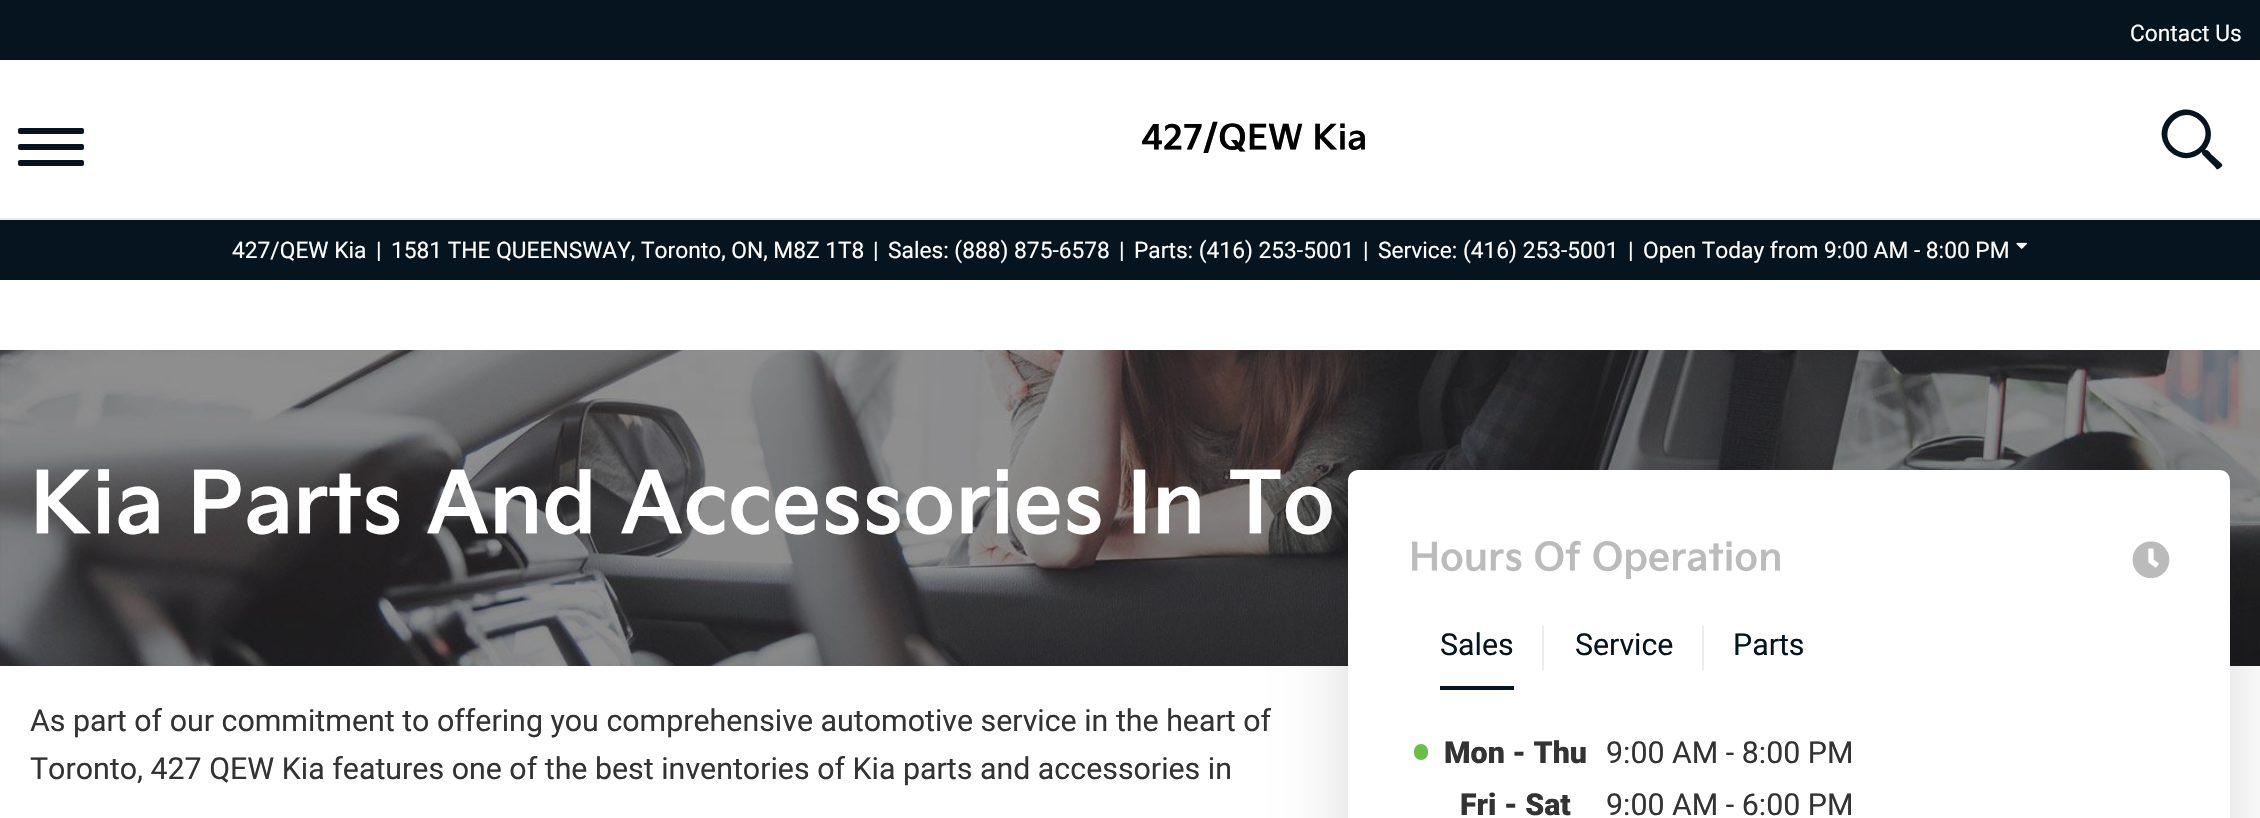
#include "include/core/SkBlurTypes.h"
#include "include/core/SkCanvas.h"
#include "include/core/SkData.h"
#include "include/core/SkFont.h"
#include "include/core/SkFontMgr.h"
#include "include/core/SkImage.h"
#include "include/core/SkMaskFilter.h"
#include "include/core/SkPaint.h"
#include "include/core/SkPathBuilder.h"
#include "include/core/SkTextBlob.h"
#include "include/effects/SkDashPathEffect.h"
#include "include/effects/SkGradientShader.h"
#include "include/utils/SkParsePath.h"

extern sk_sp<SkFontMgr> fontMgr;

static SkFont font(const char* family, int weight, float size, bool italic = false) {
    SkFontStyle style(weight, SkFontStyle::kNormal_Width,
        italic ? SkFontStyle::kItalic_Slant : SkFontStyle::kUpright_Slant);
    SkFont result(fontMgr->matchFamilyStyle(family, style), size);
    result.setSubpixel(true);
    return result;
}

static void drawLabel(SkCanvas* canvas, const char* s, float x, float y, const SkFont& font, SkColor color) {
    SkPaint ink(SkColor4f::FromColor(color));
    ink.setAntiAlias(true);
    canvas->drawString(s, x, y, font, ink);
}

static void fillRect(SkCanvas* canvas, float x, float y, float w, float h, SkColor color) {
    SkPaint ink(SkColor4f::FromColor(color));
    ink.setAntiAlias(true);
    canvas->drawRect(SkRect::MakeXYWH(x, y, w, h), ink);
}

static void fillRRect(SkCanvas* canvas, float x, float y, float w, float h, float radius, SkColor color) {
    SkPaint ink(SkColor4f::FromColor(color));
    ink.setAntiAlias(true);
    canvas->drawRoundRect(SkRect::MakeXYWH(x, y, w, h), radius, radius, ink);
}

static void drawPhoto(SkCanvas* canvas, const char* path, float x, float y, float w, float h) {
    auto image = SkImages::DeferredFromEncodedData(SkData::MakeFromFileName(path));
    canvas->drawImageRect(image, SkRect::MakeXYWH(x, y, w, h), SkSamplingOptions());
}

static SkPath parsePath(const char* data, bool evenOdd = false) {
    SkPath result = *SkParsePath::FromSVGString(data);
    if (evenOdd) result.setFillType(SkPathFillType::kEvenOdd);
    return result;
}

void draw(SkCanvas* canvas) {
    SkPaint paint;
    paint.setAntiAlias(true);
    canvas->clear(0xFFFFFFFF);
    fillRect(canvas, 0, 0, 2260, 280, 0xFF05141F);
    SkFont font1 = font("Roboto", 400, 22.75f);
    drawLabel(canvas, "Contact Us", 2130, 41, font1, 0xFFFFFFFF);
    fillRect(canvas, 0, 60, 2260, 158, 0xFFFFFFFF);
    fillRect(canvas, 0, 218, 2260, 2, 0xFFECECEC);
    fillRRect(canvas, 18, 144, 66, 6, 2, 0xFF05141F);
    fillRRect(canvas, 18, 128, 66, 6, 2, 0xFF05141F);
    fillRRect(canvas, 18, 160, 66, 6, 2, 0xFF05141F);
    SkFont font2 = font("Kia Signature", 700, 34);
    drawLabel(canvas, "427/QEW Kia", 1141, 149, font2, 0xFF000000);
    paint.setColor(0xFF05141F);
    canvas->drawPath(parsePath("M2222 164C2223 166 2221 167 2220 168C2217 170 2217 170 2215 167L2205 157C2203 155 2202 155 2202 152C2179 172 2147 139 2169 117C2191 95 2225 126 2205 150C2209 150 2209 152 2212 155ZM2173 147C2191 165 2217 138 2200 121C2182 103 2156 130 2173 147Z"), paint);
    drawLabel(canvas, "427/QEW Kia", 232, 258, font1, 0xFFFFFFFF);
    drawLabel(canvas, "|", 376, 258, font1, 0xFFFFFFFF);
    drawLabel(canvas, "1581 THE QUEENSWAY, Toronto, ON, M8Z 1T8", 391, 258, font1, 0xFFFFFFFF);
    drawLabel(canvas, "|", 873, 258, font1, 0xFFFFFFFF);
    drawLabel(canvas, "Sales: (888) 875-6578", 888, 258, font1, 0xFFFFFFFF);
    drawLabel(canvas, "|", 1119, 258, font1, 0xFFFFFFFF);
    drawLabel(canvas, "Parts: (416) 253-5001", 1134, 258, font1, 0xFFFFFFFF);
    drawLabel(canvas, "|", 1363, 258, font1, 0xFFFFFFFF);
    drawLabel(canvas, "Service: (416) 253-5001", 1378, 258, font1, 0xFFFFFFFF);
    drawLabel(canvas, "|", 1628, 258, font1, 0xFFFFFFFF);
    drawLabel(canvas, "Open Today from 9:00 AM - 8:00 PM", 1643, 258, font1, 0xFFFFFFFF);
    drawPhoto(canvas, "assets/img1.png", 2016, 242, 11, 7);
    drawPhoto(canvas, "assets/img2.png", 0, 350, 2260, 316);
    SkFont font3 = font("Kia Signature", 700, 83.4f);
    drawLabel(canvas, "Kia Parts And Accessories In To", 30, 532, font3, 0xFFFFFFFF);
    SkFont font4 = font("Roboto", 400, 30.35f);
    drawLabel(canvas, "As part of our commitment to offering you comprehensive automotive service in the heart of", 30, 731, font4, 0xFF333333);
    drawLabel(canvas, "Toronto, 427 QEW Kia features one of the best inventories of Kia parts and accessories in", 30, 779, font4, 0xFF333333);
    paint.setColor(0x26000000);
    paint.setMaskFilter(SkMaskFilter::MakeBlur(kNormal_SkBlurStyle, 34));
    canvas->drawRoundRect(SkRect::MakeXYWH(1348, 482, 882, 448), 10, 10, paint);
    paint.setMaskFilter(nullptr);
    fillRRect(canvas, 1348, 470, 882, 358, 10, 0xFFFFFFFF);
    SkFont font5 = font("Kia Signature", 700, 38);
    drawLabel(canvas, "Hours Of Operation", 1409, 570, font5, 0xFFBBBBBB);
    drawPhoto(canvas, "assets/img3.png", 2132, 541, 38, 38);
    fillRect(canvas, 1440, 686, 74, 4, 0xFF05141F);
    drawLabel(canvas, "Sales", 1440, 655, font4, 0xFF05141F);
    fillRect(canvas, 1542, 626, 2, 44, 0xFFECECEC);
    drawLabel(canvas, "Service", 1575, 655, font4, 0xFF05141F);
    fillRect(canvas, 1702, 626, 2, 44, 0xFFECECEC);
    drawLabel(canvas, "Parts", 1733, 655, font4, 0xFF05141F);
    fillRRect(canvas, 1414, 744, 14, 16, 7, 0xFF6BBF49);
    SkFont font6 = font("Roboto", 900, 30.35f);
    drawLabel(canvas, "Mon - Thu", 1444, 763, font6, 0xFF333333);
    drawLabel(canvas, "9:00 AM - 8:00 PM", 1606, 763, font4, 0xFF333333);
    drawLabel(canvas, "Fri - Sat", 1460, 815, font6, 0xFF333333);
    drawLabel(canvas, "9:00 AM - 6:00 PM", 1606, 815, font4, 0xFF333333);
}
